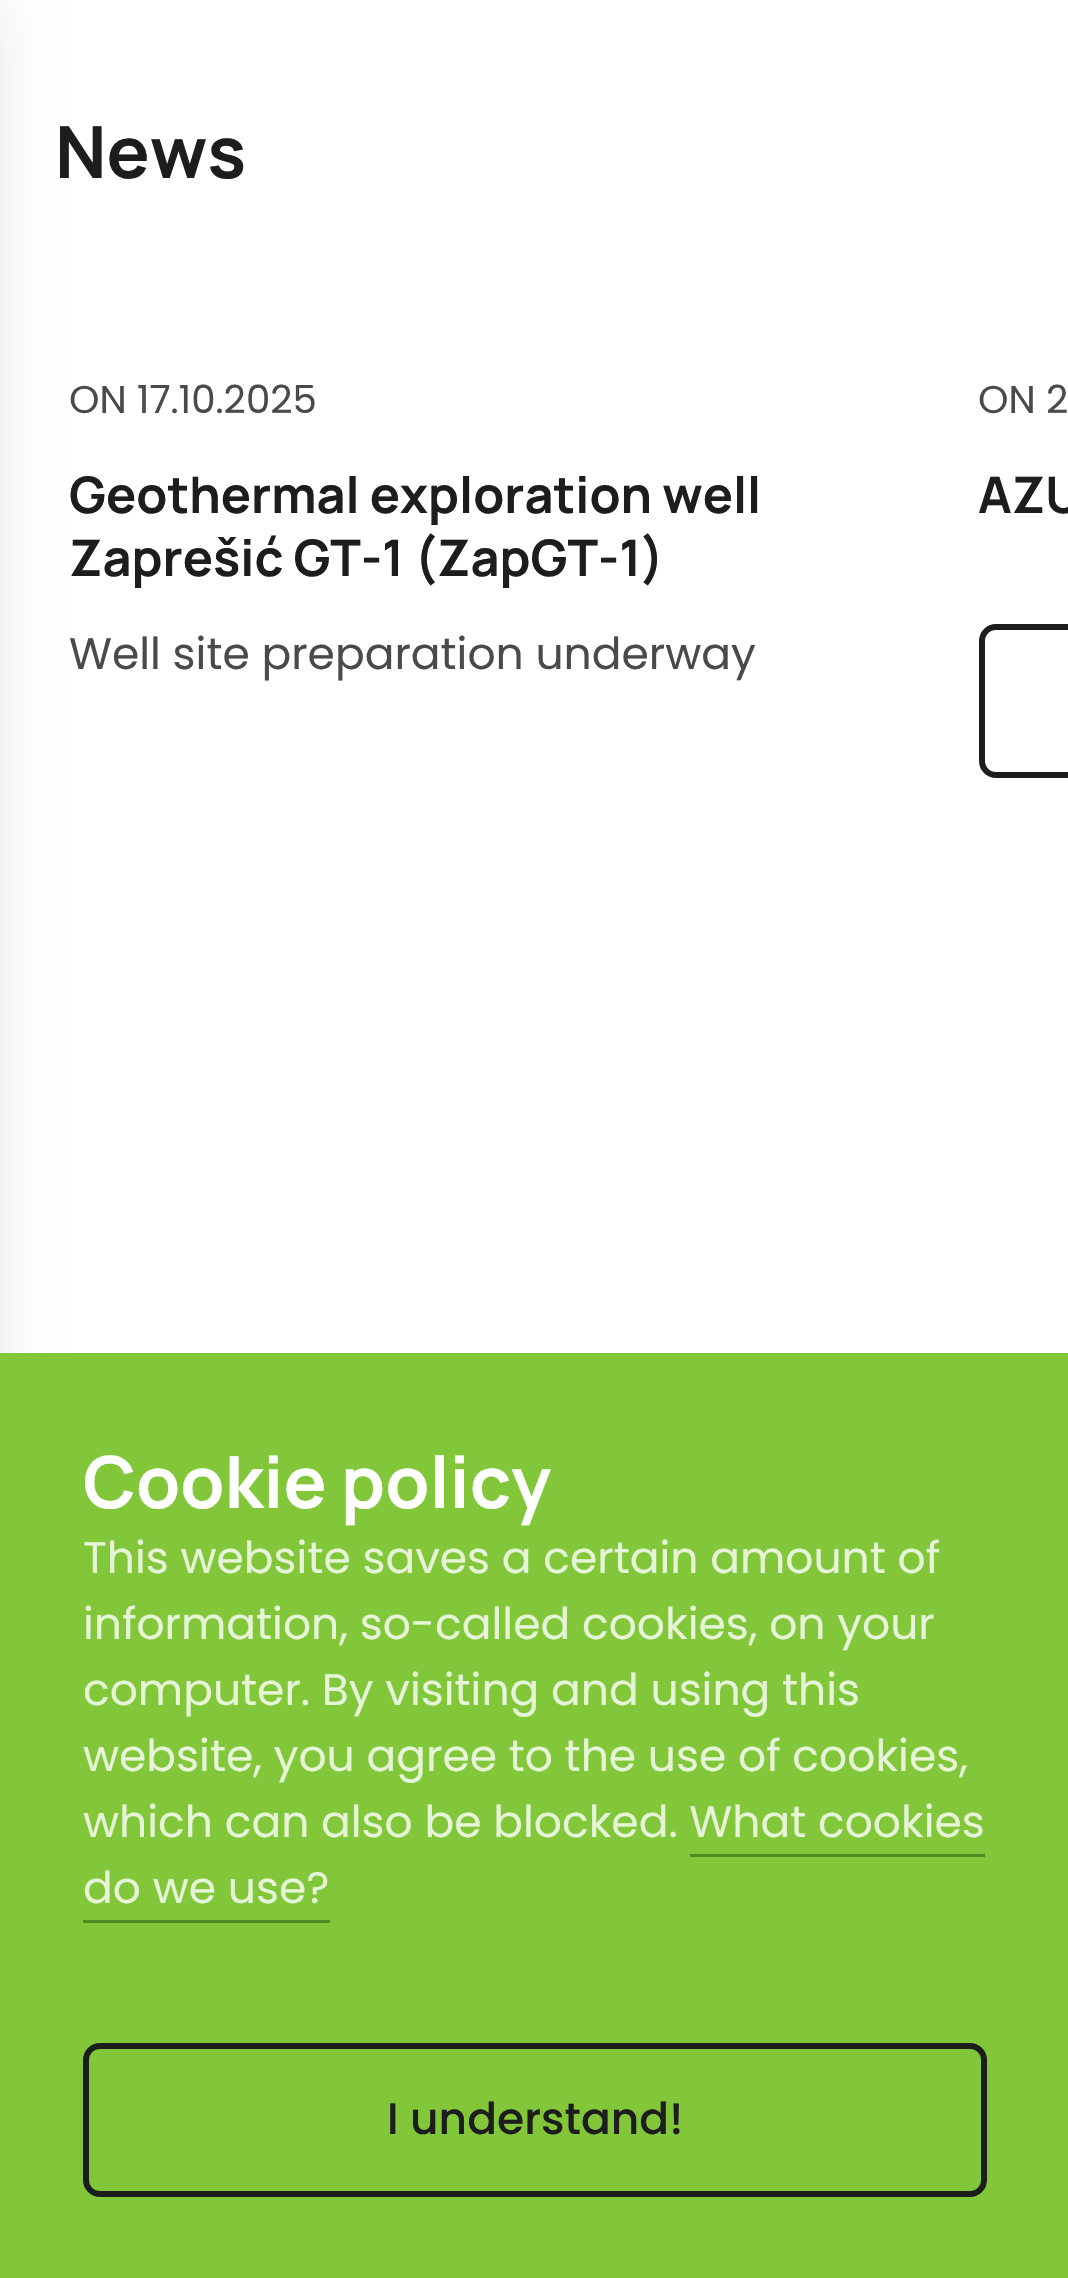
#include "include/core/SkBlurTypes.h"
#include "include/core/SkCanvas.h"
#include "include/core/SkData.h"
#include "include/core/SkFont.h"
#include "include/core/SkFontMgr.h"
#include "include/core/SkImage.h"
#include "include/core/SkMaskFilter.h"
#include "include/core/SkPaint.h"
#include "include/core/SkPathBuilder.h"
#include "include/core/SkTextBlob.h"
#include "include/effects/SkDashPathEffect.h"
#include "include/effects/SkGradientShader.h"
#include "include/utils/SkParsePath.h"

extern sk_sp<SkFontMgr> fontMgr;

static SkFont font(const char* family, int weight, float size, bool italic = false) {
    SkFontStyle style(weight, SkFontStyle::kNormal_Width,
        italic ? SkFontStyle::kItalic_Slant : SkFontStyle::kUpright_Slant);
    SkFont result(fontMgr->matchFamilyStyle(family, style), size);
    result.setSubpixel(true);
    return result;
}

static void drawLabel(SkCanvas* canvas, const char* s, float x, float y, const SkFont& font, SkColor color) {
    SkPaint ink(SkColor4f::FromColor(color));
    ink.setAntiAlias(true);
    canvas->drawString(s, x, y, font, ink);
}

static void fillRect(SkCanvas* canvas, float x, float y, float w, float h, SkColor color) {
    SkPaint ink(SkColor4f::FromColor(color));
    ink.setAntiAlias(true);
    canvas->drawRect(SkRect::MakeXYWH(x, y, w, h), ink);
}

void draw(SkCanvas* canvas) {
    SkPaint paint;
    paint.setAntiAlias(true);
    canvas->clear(0xFFFFFFFF);
    paint.setColor(0x1F000000);
    paint.setMaskFilter(SkMaskFilter::MakeBlur(kNormal_SkBlurStyle, 33));
    canvas->drawRect(SkRect::MakeXYWH(-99, 0, 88, 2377), paint);
    paint.setMaskFilter(nullptr);
    SkFont font1 = font("Manrope", 200, 71.75f);
    drawLabel(canvas, "News", 55, 178, font1, 0xFF1D1D1D);
    SkFont font2 = font("Poppins", 400, 38.75f);
    drawLabel(canvas, "ON 17.10.2025", 69, 413, font2, 0xFF4A4A4A);
    SkFont font3 = font("Manrope", 200, 50.4f);
    drawLabel(canvas, "Geothermal exploration well", 69, 513, font3, 0xFF1D1D1D);
    drawLabel(canvas, "Zaprešić GT-1 (ZapGT-1)", 69, 576, font3, 0xFF1D1D1D);
    SkFont font4 = font("Poppins", 400, 44);
    drawLabel(canvas, "Well site preparation underway", 69, 669, font4, 0xFF4A4A4A);
    drawLabel(canvas, "ON 2", 978, 413, font2, 0xFF4A4A4A);
    drawLabel(canvas, "AZU", 978, 513, font3, 0xFF1D1D1D);
    paint.setStroke(true);
    paint.setStrokeWidth(6);
    paint.setColor(0xFF1D1D1D);
    canvas->drawRoundRect(SkRect::MakeXYWH(982, 627, 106, 148), 14, 14, paint);
    fillRect(canvas, 0, 1353, 1068, 925, 0xFF81C739);
    drawLabel(canvas, "Cookie policy", 83, 1508, font1, 0xFFFFFFFF);
    drawLabel(canvas, "This website saves a certain amount of", 83, 1573, font4, 0xFFE6F4D7);
    drawLabel(canvas, "information, so-called cookies, on your", 83, 1639, font4, 0xFFE6F4D7);
    drawLabel(canvas, "computer. By visiting and using this", 83, 1705, font4, 0xFFE6F4D7);
    drawLabel(canvas, "website, you agree to the use of cookies,", 83, 1771, font4, 0xFFE6F4D7);
    drawLabel(canvas, "which can also be blocked. What cookies", 83, 1837, font4, 0xFFE6F4D7);
    drawLabel(canvas, "do we use?", 83, 1903, font4, 0xFFE6F4D7);
    fillRect(canvas, 690, 1854, 295, 3, 0xFF4E8C23);
    fillRect(canvas, 83, 1920, 247, 3, 0xFF4E8C23);
    canvas->drawRoundRect(SkRect::MakeXYWH(86, 2046, 898, 148), 14, 14, paint);
    SkFont font5 = font("Poppins", 500, 44);
    drawLabel(canvas, "I understand!", 387, 2134, font5, 0xFF1D1D1D);
}
